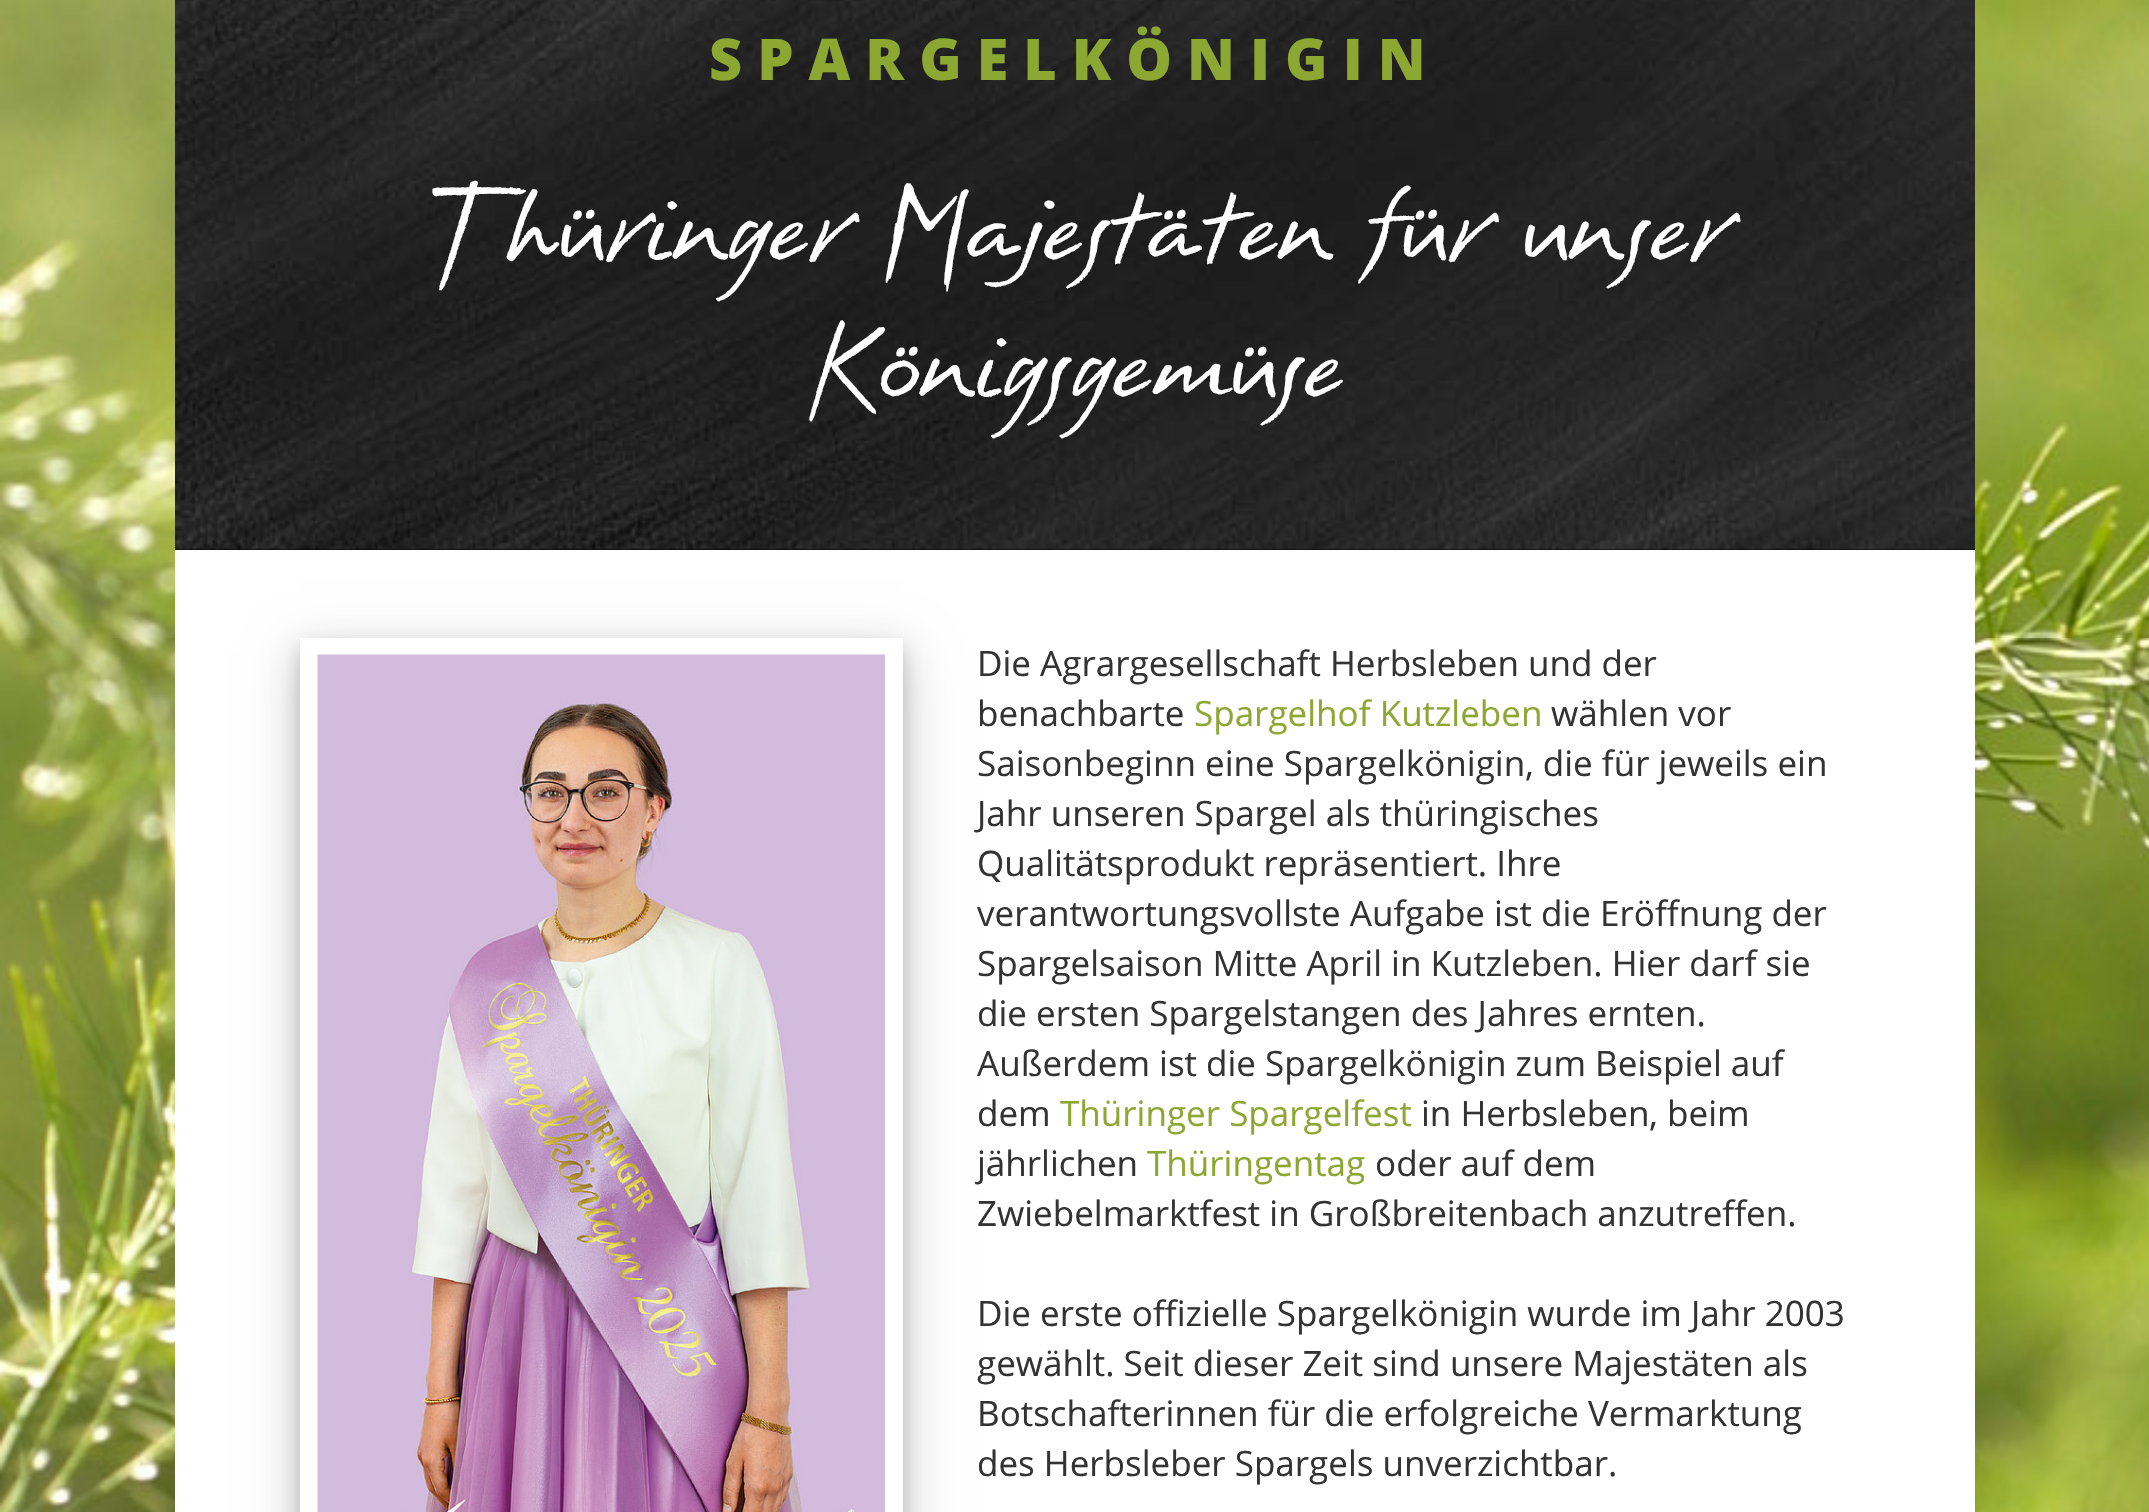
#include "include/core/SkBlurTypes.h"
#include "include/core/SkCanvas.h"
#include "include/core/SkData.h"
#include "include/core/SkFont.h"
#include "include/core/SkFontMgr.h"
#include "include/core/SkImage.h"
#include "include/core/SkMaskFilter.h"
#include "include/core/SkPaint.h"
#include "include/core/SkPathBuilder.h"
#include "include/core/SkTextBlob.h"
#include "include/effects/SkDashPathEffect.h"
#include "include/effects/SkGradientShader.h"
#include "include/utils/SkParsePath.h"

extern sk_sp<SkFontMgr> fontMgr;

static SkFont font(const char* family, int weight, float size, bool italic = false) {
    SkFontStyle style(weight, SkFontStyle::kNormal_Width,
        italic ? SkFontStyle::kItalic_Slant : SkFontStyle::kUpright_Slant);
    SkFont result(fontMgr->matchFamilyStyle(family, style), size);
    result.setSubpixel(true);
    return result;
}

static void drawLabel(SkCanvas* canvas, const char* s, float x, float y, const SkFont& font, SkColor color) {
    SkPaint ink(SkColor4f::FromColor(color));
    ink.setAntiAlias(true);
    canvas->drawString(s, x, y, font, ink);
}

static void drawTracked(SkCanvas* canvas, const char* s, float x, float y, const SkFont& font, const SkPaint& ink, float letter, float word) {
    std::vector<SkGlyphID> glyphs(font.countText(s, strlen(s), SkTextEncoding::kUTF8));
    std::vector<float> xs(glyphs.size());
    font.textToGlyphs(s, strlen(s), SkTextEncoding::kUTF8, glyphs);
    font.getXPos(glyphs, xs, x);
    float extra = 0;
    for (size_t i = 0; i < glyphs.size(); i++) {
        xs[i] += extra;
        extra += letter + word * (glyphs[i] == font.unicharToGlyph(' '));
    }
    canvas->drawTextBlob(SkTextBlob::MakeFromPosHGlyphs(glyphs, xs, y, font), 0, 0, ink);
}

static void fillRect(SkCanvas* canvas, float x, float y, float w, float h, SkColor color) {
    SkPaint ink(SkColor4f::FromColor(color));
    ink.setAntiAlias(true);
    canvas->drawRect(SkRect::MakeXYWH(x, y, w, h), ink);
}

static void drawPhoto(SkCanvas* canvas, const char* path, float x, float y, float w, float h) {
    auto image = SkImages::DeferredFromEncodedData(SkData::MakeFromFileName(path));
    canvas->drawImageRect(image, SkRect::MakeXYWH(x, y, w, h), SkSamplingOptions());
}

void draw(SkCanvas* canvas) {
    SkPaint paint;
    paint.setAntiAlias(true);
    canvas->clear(0xFFFFFFFF);
    drawPhoto(canvas, "assets/img1.png", 0, 0, 2149, 1512);
    fillRect(canvas, 175, 549, 1800, 1, 0xFF000000);
    drawPhoto(canvas, "assets/img2.png", 175, 0, 1800, 550);
    SkFont font1 = font("Open Sans", 800, 57.5f);
    paint.setColor(0xFF8CA732);
    drawTracked(canvas, "SPARGELKÖNIGIN", 709, 80, font1, paint, 15, 0);
    SkFont font2 = font("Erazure", 400, 137.5f);
    drawLabel(canvas, "Thüringer Majestäten für unser", 421, 261, font2, 0xFFFFFFFF);
    drawLabel(canvas, "Königsgemüse", 808, 398, font2, 0xFFFFFFFF);
    fillRect(canvas, 175, 550, 1800, 962, 0xFFFFFFFF);
    paint.setColor(0x30000000);
    paint.setMaskFilter(SkMaskFilter::MakeBlur(kNormal_SkBlurStyle, 25));
    canvas->drawRect(SkRect::MakeXYWH(300, 653, 603, 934), paint);
    paint.setMaskFilter(nullptr);
    paint.setColor(0x33000000);
    paint.setMaskFilter(SkMaskFilter::MakeBlur(kNormal_SkBlurStyle, 10));
    canvas->drawRect(SkRect::MakeXYWH(300, 648, 603, 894), paint);
    paint.setMaskFilter(nullptr);
    paint.setStroke(true);
    paint.setStrokeWidth(18);
    paint.setColor(0xFFFFFFFF);
    canvas->drawRect(SkRect::MakeXYWH(309, 647, 585, 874), paint);
    drawPhoto(canvas, "assets/img3.png", 317, 654, 568, 858);
    SkFont font3 = font("Open Sans", 400, 35);
    drawLabel(canvas, "Die Agrargesellschaft Herbsleben und der", 977, 676, font3, 0xFF333333);
    drawLabel(canvas, "benachbarte", 977, 726, font3, 0xFF333333);
    drawLabel(canvas, "Spargelhof Kutzleben", 1194, 726, font3, 0xFF8CA732);
    drawLabel(canvas, "wählen vor", 1551, 726, font3, 0xFF333333);
    drawLabel(canvas, "Saisonbeginn eine Spargelkönigin, die für jeweils ein", 977, 776, font3, 0xFF333333);
    drawLabel(canvas, "Jahr unseren Spargel als thüringisches", 977, 826, font3, 0xFF333333);
    drawLabel(canvas, "Qualitätsprodukt repräsentiert. Ihre", 977, 876, font3, 0xFF333333);
    drawLabel(canvas, "verantwortungsvollste Aufgabe ist die Eröffnung der", 977, 926, font3, 0xFF333333);
    drawLabel(canvas, "Spargelsaison Mitte April in Kutzleben. Hier darf sie", 977, 976, font3, 0xFF333333);
    drawLabel(canvas, "die ersten Spargelstangen des Jahres ernten.", 977, 1026, font3, 0xFF333333);
    drawLabel(canvas, "Außerdem ist die Spargelkönigin zum Beispiel auf", 977, 1076, font3, 0xFF333333);
    drawLabel(canvas, "dem", 977, 1126, font3, 0xFF333333);
    drawLabel(canvas, "Thüringer Spargelfest", 1060, 1126, font3, 0xFF8CA732);
    drawLabel(canvas, "in Herbsleben, beim", 1421, 1126, font3, 0xFF333333);
    drawLabel(canvas, "jährlichen", 977, 1176, font3, 0xFF333333);
    drawLabel(canvas, "Thüringentag", 1147, 1176, font3, 0xFF8CA732);
    drawLabel(canvas, "oder auf dem", 1375, 1176, font3, 0xFF333333);
    drawLabel(canvas, "Zwiebelmarktfest in Großbreitenbach anzutreffen.", 977, 1226, font3, 0xFF333333);
    drawLabel(canvas, "Die erste offizielle Spargelkönigin wurde im Jahr 2003", 977, 1326, font3, 0xFF333333);
    drawLabel(canvas, "gewählt. Seit dieser Zeit sind unsere Majestäten als", 977, 1376, font3, 0xFF333333);
    drawLabel(canvas, "Botschafterinnen für die erfolgreiche Vermarktung", 977, 1426, font3, 0xFF333333);
    drawLabel(canvas, "des Herbsleber Spargels unverzichtbar.", 977, 1476, font3, 0xFF333333);
}
